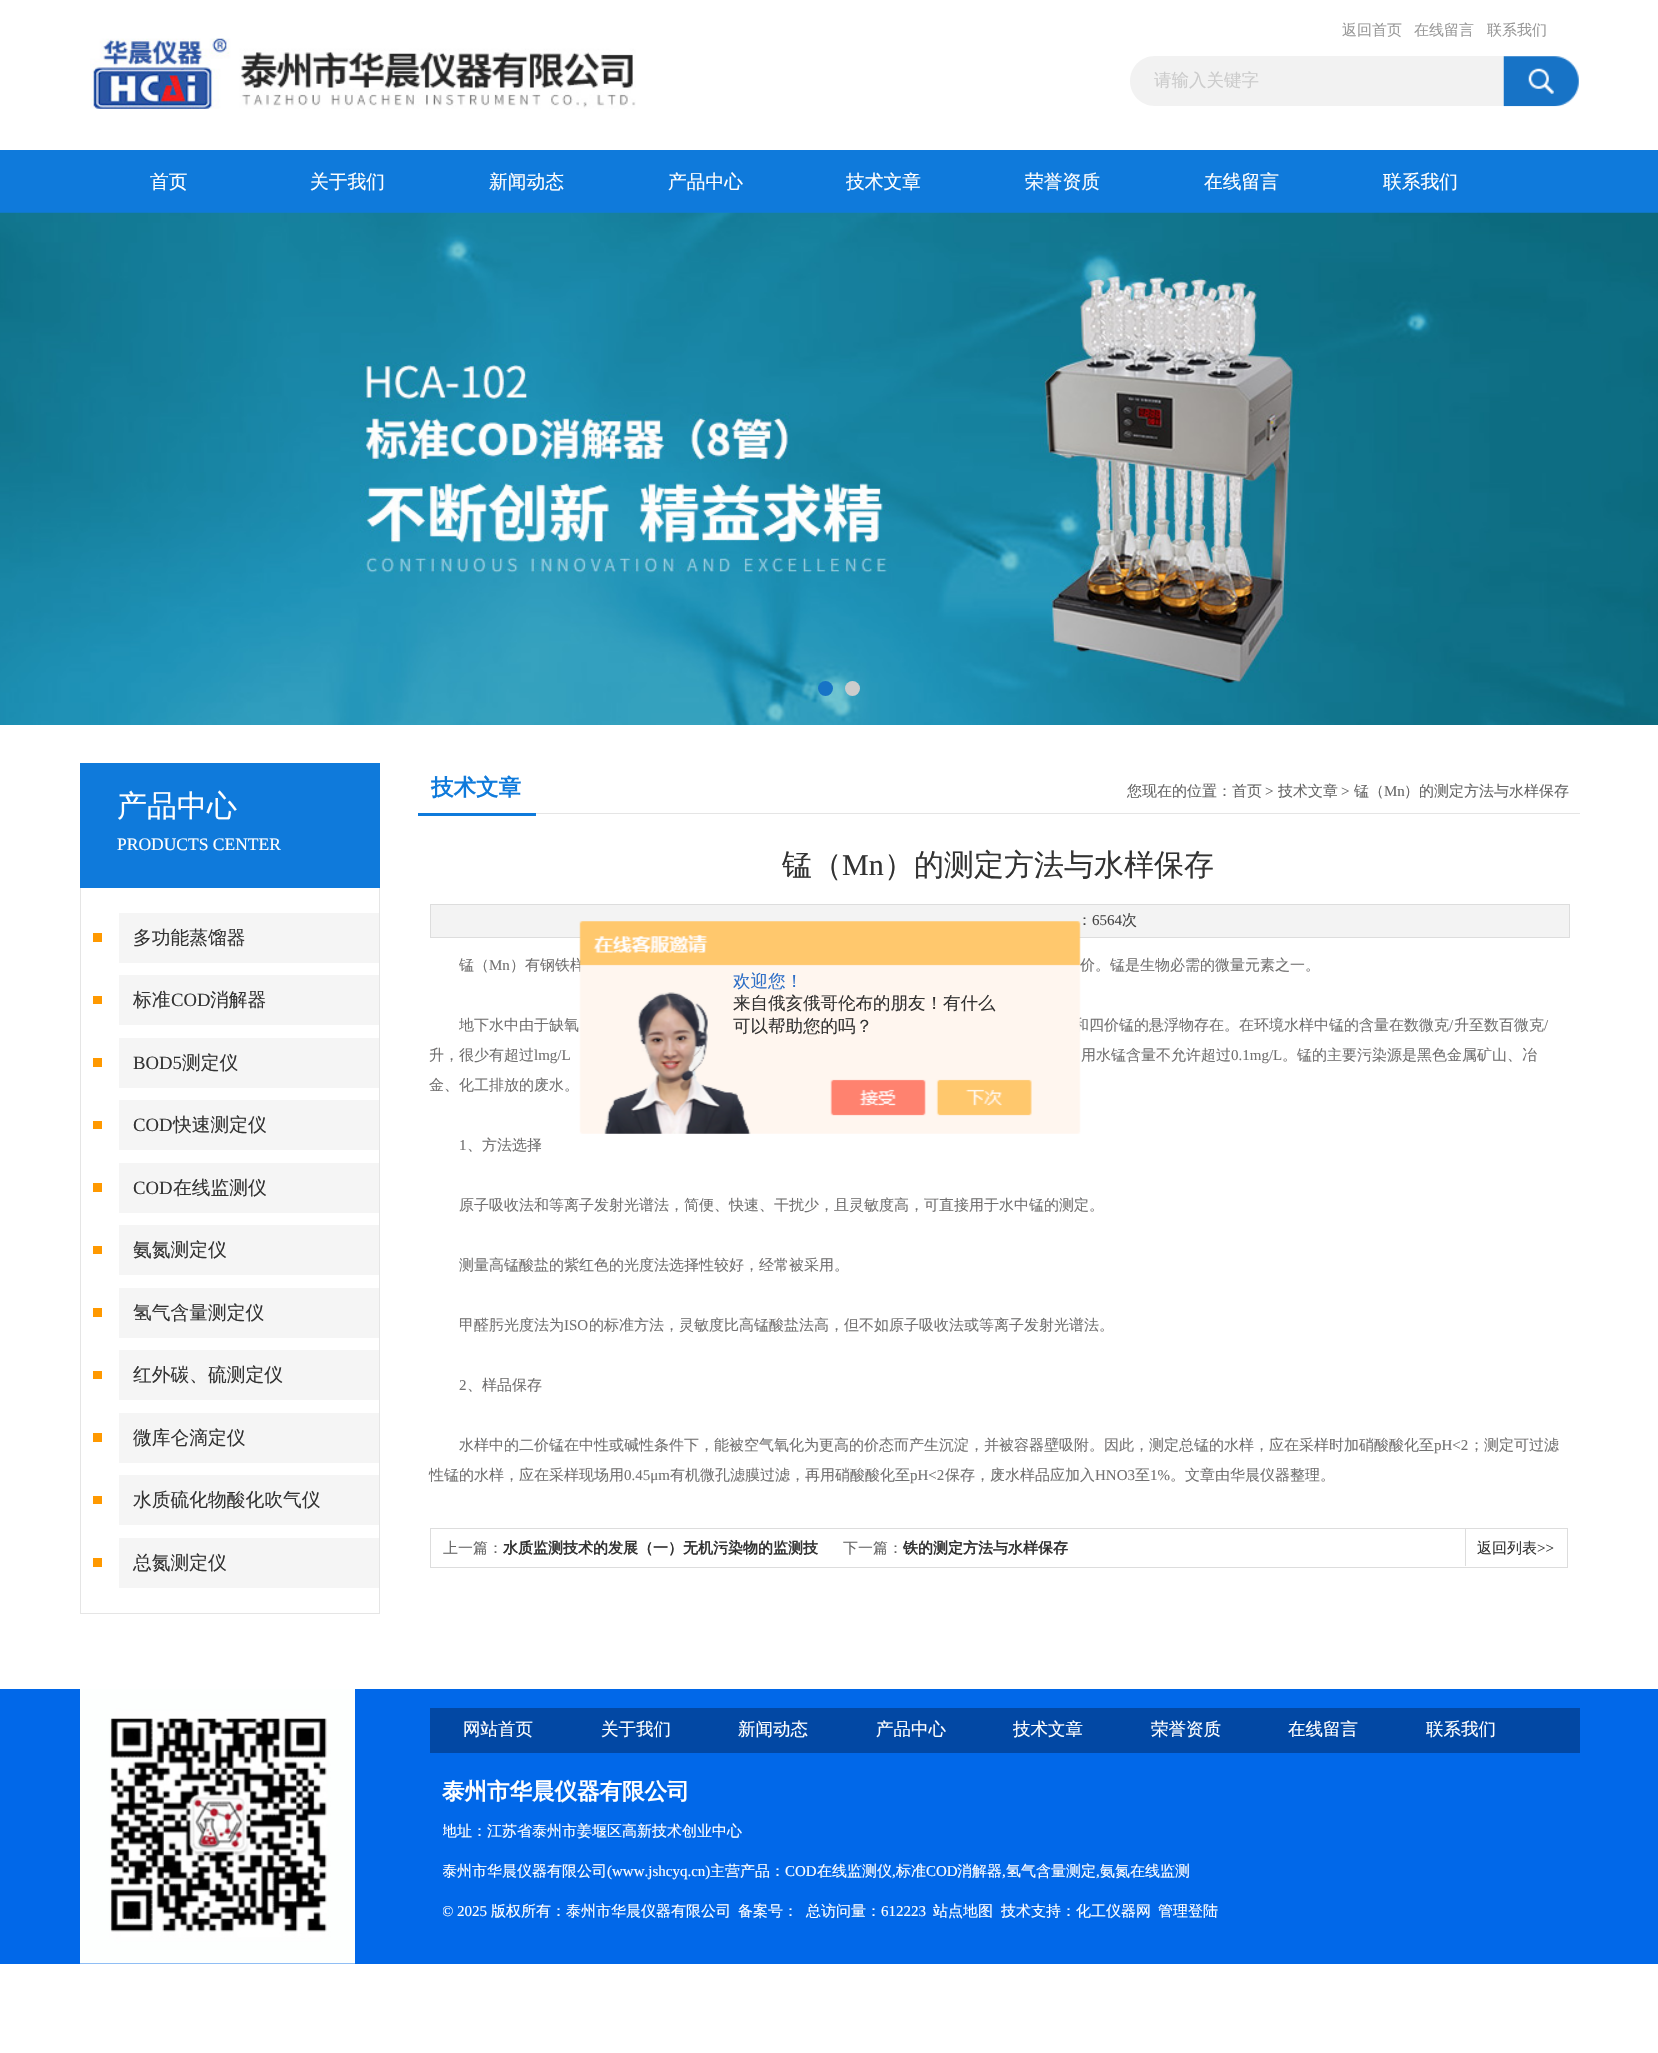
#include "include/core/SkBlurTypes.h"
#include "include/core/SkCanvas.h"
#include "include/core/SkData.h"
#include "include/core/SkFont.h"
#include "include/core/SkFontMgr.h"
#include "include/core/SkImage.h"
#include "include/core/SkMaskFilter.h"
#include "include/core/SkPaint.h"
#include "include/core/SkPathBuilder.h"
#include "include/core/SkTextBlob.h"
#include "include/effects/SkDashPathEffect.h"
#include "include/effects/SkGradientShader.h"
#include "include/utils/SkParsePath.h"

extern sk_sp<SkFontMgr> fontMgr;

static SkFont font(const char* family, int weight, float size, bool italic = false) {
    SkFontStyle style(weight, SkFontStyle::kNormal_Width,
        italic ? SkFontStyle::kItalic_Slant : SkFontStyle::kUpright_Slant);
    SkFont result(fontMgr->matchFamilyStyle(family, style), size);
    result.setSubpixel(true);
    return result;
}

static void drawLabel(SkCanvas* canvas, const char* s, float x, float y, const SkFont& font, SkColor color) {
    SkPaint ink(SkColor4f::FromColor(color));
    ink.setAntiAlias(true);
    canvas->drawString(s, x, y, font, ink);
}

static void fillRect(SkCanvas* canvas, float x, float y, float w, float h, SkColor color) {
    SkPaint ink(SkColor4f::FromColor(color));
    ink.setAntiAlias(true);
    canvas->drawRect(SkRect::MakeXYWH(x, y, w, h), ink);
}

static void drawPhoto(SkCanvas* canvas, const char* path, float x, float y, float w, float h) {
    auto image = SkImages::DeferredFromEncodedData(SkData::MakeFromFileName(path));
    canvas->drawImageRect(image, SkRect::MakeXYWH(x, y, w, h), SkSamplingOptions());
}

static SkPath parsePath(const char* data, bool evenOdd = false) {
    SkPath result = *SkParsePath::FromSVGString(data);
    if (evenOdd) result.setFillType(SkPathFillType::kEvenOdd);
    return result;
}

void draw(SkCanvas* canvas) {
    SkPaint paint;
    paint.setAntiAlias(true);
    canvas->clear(0xFFFFFFFF);
    drawPhoto(canvas, "assets/img1.png", 90, 38, 546, 71);
    SkFont font1 = font("WenQuanYi Zen Hei", 500, 15);
    drawLabel(canvas, "返回首页", 1342, 35, font1, 0xFF999999);
    drawLabel(canvas, "在线留言", 1414, 35, font1, 0xFF999999);
    drawLabel(canvas, "联系我们", 1487, 35, font1, 0xFF999999);
    paint.setColor(0xFFF2F2F2);
    canvas->drawPath(parsePath("M1155 56H1504V106H1155C1141 106 1130 95 1130 81C1130 67 1141 56 1155 56Z"), paint);
    SkFont font2 = font("WenQuanYi Zen Hei", 500, 17.5f);
    drawLabel(canvas, "请输入关键字", 1154, 86, font2, 0xFFCCCCCC);
    drawPhoto(canvas, "assets/img2.png", 1503, 56, 76, 51);
    fillRect(canvas, 0, 150, 1658, 63, 0xFF0F7ADB);
    SkFont font3 = font("WenQuanYi Zen Hei", 500, 18.75f);
    drawLabel(canvas, "首页", 150, 188, font3, 0xFFFFFFFF);
    drawLabel(canvas, "关于我们", 310, 188, font3, 0xFFFFFFFF);
    drawLabel(canvas, "新闻动态", 489, 188, font3, 0xFFFFFFFF);
    drawLabel(canvas, "产品中心", 668, 188, font3, 0xFFFFFFFF);
    drawLabel(canvas, "技术文章", 846, 188, font3, 0xFFFFFFFF);
    drawLabel(canvas, "荣誉资质", 1025, 188, font3, 0xFFFFFFFF);
    drawLabel(canvas, "在线留言", 1204, 188, font3, 0xFFFFFFFF);
    drawLabel(canvas, "联系我们", 1383, 188, font3, 0xFFFFFFFF);
    drawPhoto(canvas, "assets/img3.png", 0, 212, 1658, 513);
    paint.setColor(0xFF1773C6);
    canvas->drawCircle(825.5f, 688.5f, 7.5f, paint);
    paint.setColor(0xFFCCCCCC);
    canvas->drawCircle(852.5f, 688.5f, 7.5f, paint);
    fillRect(canvas, 80, 763, 300, 125, 0xFF0F7ADB);
    SkFont font4 = font("WenQuanYi Zen Hei", 500, 30);
    drawLabel(canvas, "产品中心", 117, 816, font4, 0xFFFFFFFF);
    SkFont font5 = font("Liberation Serif", 400, 17.5f);
    drawLabel(canvas, "PRODUCTS CENTER", 117, 850, font5, 0xFFFFFFFF);
    fillRect(canvas, 379, 888, 1, 726, 0xFFE5E5E5);
    fillRect(canvas, 80, 1613, 300, 1, 0xFFE5E5E5);
    fillRect(canvas, 80, 888, 1, 726, 0xFFE5E5E5);
    fillRect(canvas, 93, 933, 9, 9, 0xFFFF9900);
    fillRect(canvas, 119, 913, 260, 50, 0xFFF5F5F5);
    drawLabel(canvas, "多功能蒸馏器", 133, 944, font3, 0xFF333333);
    fillRect(canvas, 93, 996, 9, 8, 0xFFFF9900);
    fillRect(canvas, 119, 975, 260, 50, 0xFFF5F5F5);
    drawLabel(canvas, "标准", 133, 1006, font3, 0xFF333333);
    SkFont font6 = font("Liberation Serif", 400, 18.75f);
    drawLabel(canvas, "COD", 171, 1006, font6, 0xFF333333);
    drawLabel(canvas, "消解器", 210, 1006, font3, 0xFF333333);
    fillRect(canvas, 93, 1058, 9, 9, 0xFFFF9900);
    fillRect(canvas, 119, 1038, 260, 50, 0xFFF5F5F5);
    drawLabel(canvas, "BOD5", 133, 1069, font6, 0xFF333333);
    drawLabel(canvas, "测定仪", 182, 1069, font3, 0xFF333333);
    fillRect(canvas, 93, 1121, 9, 8, 0xFFFF9900);
    fillRect(canvas, 119, 1100, 260, 50, 0xFFF5F5F5);
    drawLabel(canvas, "COD", 133, 1131, font6, 0xFF333333);
    drawLabel(canvas, "快速测定仪", 173, 1131, font3, 0xFF333333);
    fillRect(canvas, 93, 1183, 9, 9, 0xFFFF9900);
    fillRect(canvas, 119, 1163, 260, 50, 0xFFF5F5F5);
    drawLabel(canvas, "COD", 133, 1194, font6, 0xFF333333);
    drawLabel(canvas, "在线监测仪", 173, 1194, font3, 0xFF333333);
    fillRect(canvas, 93, 1246, 9, 8, 0xFFFF9900);
    fillRect(canvas, 119, 1225, 260, 50, 0xFFF5F5F5);
    drawLabel(canvas, "氨氮测定仪", 133, 1256, font3, 0xFF333333);
    fillRect(canvas, 93, 1308, 9, 9, 0xFFFF9900);
    fillRect(canvas, 119, 1288, 260, 50, 0xFFF5F5F5);
    drawLabel(canvas, "氢气含量测定仪", 133, 1319, font3, 0xFF333333);
    fillRect(canvas, 93, 1371, 9, 8, 0xFFFF9900);
    fillRect(canvas, 119, 1350, 260, 50, 0xFFF5F5F5);
    drawLabel(canvas, "红外碳、硫测定仪", 133, 1381, font3, 0xFF333333);
    fillRect(canvas, 93, 1433, 9, 9, 0xFFFF9900);
    fillRect(canvas, 119, 1413, 260, 50, 0xFFF5F5F5);
    drawLabel(canvas, "微库仑滴定仪", 133, 1444, font3, 0xFF333333);
    fillRect(canvas, 93, 1496, 9, 8, 0xFFFF9900);
    fillRect(canvas, 119, 1475, 260, 50, 0xFFF5F5F5);
    drawLabel(canvas, "水质硫化物酸化吹气仪", 133, 1506, font3, 0xFF333333);
    fillRect(canvas, 93, 1558, 9, 9, 0xFFFF9900);
    fillRect(canvas, 119, 1538, 260, 50, 0xFFF5F5F5);
    drawLabel(canvas, "总氮测定仪", 133, 1569, font3, 0xFF333333);
    fillRect(canvas, 536, 813, 1044, 1, 0xFFE5E5E5);
    fillRect(canvas, 418, 813, 118, 3, 0xFF0F7ADB);
    SkFont font7 = font("WenQuanYi Zen Hei", 700, 22.5f);
    drawLabel(canvas, "技术文章", 431, 795, font7, 0xFF0F7ADB);
    drawLabel(canvas, "您现在的位置：首页", 1127, 796, font1, 0xFF666666);
    SkFont font8 = font("Liberation Serif", 400, 15);
    drawLabel(canvas, ">", 1265, 796, font8, 0xFF666666);
    drawLabel(canvas, "技术文章", 1278, 796, font1, 0xFF666666);
    drawLabel(canvas, ">", 1341, 796, font8, 0xFF666666);
    drawLabel(canvas, "锰（", 1354, 796, font1, 0xFF666666);
    drawLabel(canvas, "Mn", 1384, 796, font8, 0xFF666666);
    drawLabel(canvas, "）的测定方法与水样保存", 1404, 796, font1, 0xFF666666);
    drawLabel(canvas, "锰（", 782, 875, font4, 0xFF333333);
    SkFont font9 = font("Liberation Serif", 400, 30);
    drawLabel(canvas, "Mn", 842, 875, font9, 0xFF333333);
    drawLabel(canvas, "）的测定方法与水样保存", 884, 875, font4, 0xFF333333);
    paint.setColor(0xFFF3F3F3);
    canvas->drawRect(SkRect::MakeXYWH(430.5f, 904.5f, 1139, 33), paint);
    paint.setStroke(true);
    paint.setStrokeWidth(1);
    paint.setColor(0xFFDDDDDD);
    canvas->drawRect(SkRect::MakeXYWH(430.5f, 904.5f, 1139, 33), paint);
    drawLabel(canvas, "：", 1077, 925, font1, 0xFF444444);
    drawLabel(canvas, "6564", 1092, 925, font8, 0xFF444444);
    drawLabel(canvas, "次", 1122, 925, font1, 0xFF444444);
    drawLabel(canvas, "锰（", 459, 970, font1, 0xFF727171);
    drawLabel(canvas, "Mn", 489, 970, font8, 0xFF727171);
    drawLabel(canvas, "）有钢铁样", 510, 970, font1, 0xFF727171);
    drawLabel(canvas, "价。锰是生物必需的微量元素之一。", 1080, 970, font1, 0xFF727171);
    drawLabel(canvas, "地下水中由于缺氧", 459, 1030, font1, 0xFF727171);
    drawLabel(canvas, "和四价锰的悬浮物存在。在环境水样中锰的含量在数微克", 1074, 1030, font1, 0xFF727171);
    drawLabel(canvas, "/", 1449, 1030, font8, 0xFF727171);
    drawLabel(canvas, "升至数百微克", 1454, 1030, font1, 0xFF727171);
    drawLabel(canvas, "/", 1544, 1030, font8, 0xFF727171);
    drawLabel(canvas, "升，很少有超过", 429, 1060, font1, 0xFF727171);
    drawLabel(canvas, "lmg/L", 534, 1060, font8, 0xFF727171);
    drawLabel(canvas, "用水锰含量不允许超过", 1081, 1060, font1, 0xFF727171);
    drawLabel(canvas, "0.1mg/L", 1231, 1060, font8, 0xFF727171);
    drawLabel(canvas, "。锰的主要污染源是黑色金属矿山、冶", 1282, 1060, font1, 0xFF727171);
    drawLabel(canvas, "金、化工排放的废水。", 429, 1090, font1, 0xFF727171);
    drawLabel(canvas, "1", 459, 1150, font8, 0xFF727171);
    drawLabel(canvas, "、方法选择", 467, 1150, font1, 0xFF727171);
    drawLabel(canvas, "原子吸收法和等离子发射光谱法，简便、快速、干扰少，且灵敏度高，可直接用于水中锰的测定。", 459, 1210, font1, 0xFF727171);
    drawLabel(canvas, "测量高锰酸盐的紫红色的光度法选择性较好，经常被采用。", 459, 1270, font1, 0xFF727171);
    drawLabel(canvas, "甲醛肟光度法为", 459, 1330, font1, 0xFF727171);
    drawLabel(canvas, "ISO", 564, 1330, font8, 0xFF727171);
    drawLabel(canvas, "的标准方法，灵敏度比高锰酸盐法高，但不如原子吸收法或等离子发射光谱法。", 589, 1330, font1, 0xFF727171);
    drawLabel(canvas, "2", 459, 1390, font8, 0xFF727171);
    drawLabel(canvas, "、样品保存", 467, 1390, font1, 0xFF727171);
    drawLabel(canvas, "水样中的二价锰在中性或碱性条件下，能被空气氧化为更高的价态而产生沉淀，并被容器壁吸附。因此，测定总锰的水样，应在采样时加硝酸酸化至", 459, 1450, font1, 0xFF727171);
    drawLabel(canvas, "pH<2", 1434, 1450, font8, 0xFF727171);
    drawLabel(canvas, "；测定可过滤", 1469, 1450, font1, 0xFF727171);
    drawLabel(canvas, "性锰的水样，应在采样现场用", 429, 1480, font1, 0xFF727171);
    drawLabel(canvas, "0.45μm", 624, 1480, font8, 0xFF727171);
    drawLabel(canvas, "有机微孔滤膜过滤，再用硝酸酸化至", 670, 1480, font1, 0xFF727171);
    drawLabel(canvas, "pH<2", 910, 1480, font8, 0xFF727171);
    drawLabel(canvas, "保存，废水样品应加入", 945, 1480, font1, 0xFF727171);
    drawLabel(canvas, "HNO3", 1095, 1480, font8, 0xFF727171);
    drawLabel(canvas, "至", 1135, 1480, font1, 0xFF727171);
    drawLabel(canvas, "1%", 1150, 1480, font8, 0xFF727171);
    drawLabel(canvas, "。文章由华晨仪器整理。", 1170, 1480, font1, 0xFF727171);
    canvas->drawRect(SkRect::MakeXYWH(430.5f, 1528.5f, 1137, 39), paint);
    drawLabel(canvas, "上一篇：", 443, 1553, font1, 0xFF666666);
    SkFont font10 = font("WenQuanYi Zen Hei", 700, 15);
    drawLabel(canvas, "水质监测技术的发展（一）无机污染物的监测技", 503, 1553, font10, 0xFF333333);
    drawLabel(canvas, "下一篇：", 843, 1553, font1, 0xFF666666);
    drawLabel(canvas, "铁的测定方法与水样保存", 903, 1553, font10, 0xFF333333);
    fillRect(canvas, 1465, 1529, 1, 37, 0xFFDDDDDD);
    drawLabel(canvas, "返回列表", 1477, 1553, font1, 0xFF333333);
    drawLabel(canvas, ">>", 1537, 1553, font8, 0xFF333333);
    drawPhoto(canvas, "assets/img4.png", 579, 921, 502, 213);
    drawLabel(canvas, "欢迎您！", 733, 987, font2, 0xFF2E6EC6);
    drawLabel(canvas, "来自俄亥俄哥伦布的朋友！有什么", 733, 1009, font2, 0xFF333333);
    drawLabel(canvas, "可以帮助您的吗？", 733, 1032, font2, 0xFF333333);
    fillRect(canvas, 0, 1689, 1658, 275, 0xFF0168E9);
    drawPhoto(canvas, "assets/img5.png", 80, 1689, 275, 275);
    fillRect(canvas, 430, 1708, 1150, 45, 0xFF0248A4);
    drawLabel(canvas, "网站首页", 463, 1735, font2, 0xFFFFFFFF);
    drawLabel(canvas, "关于我们", 601, 1735, font2, 0xFFFFFFFF);
    drawLabel(canvas, "新闻动态", 738, 1735, font2, 0xFFFFFFFF);
    drawLabel(canvas, "产品中心", 876, 1735, font2, 0xFFFFFFFF);
    drawLabel(canvas, "技术文章", 1013, 1735, font2, 0xFFFFFFFF);
    drawLabel(canvas, "荣誉资质", 1151, 1735, font2, 0xFFFFFFFF);
    drawLabel(canvas, "在线留言", 1288, 1735, font2, 0xFFFFFFFF);
    drawLabel(canvas, "联系我们", 1426, 1735, font2, 0xFFFFFFFF);
    drawLabel(canvas, "泰州市华晨仪器有限公司", 442, 1799, font7, 0xFFFFFFFF);
    canvas->save();
    canvas->clipRect(SkRect::MakeXYWH(443, 1818, 1125, 40));
    drawLabel(canvas, "地址：江苏省泰州市姜堰区高新技术创业中心", 442, 1836, font1, 0xFFFFFFFF);
    canvas->restore();
    canvas->save();
    canvas->clipRect(SkRect::MakeXYWH(443, 1858, 1125, 40));
    drawLabel(canvas, "泰州市华晨仪器有限公司", 442, 1876, font1, 0xFFFFFFFF);
    canvas->restore();
    drawLabel(canvas, "(www.jshcyq.cn)", 607, 1876, font8, 0xFFFFFFFF);
    drawLabel(canvas, "主营产品：", 710, 1876, font1, 0xFFFFFFFF);
    drawLabel(canvas, "COD", 785, 1876, font8, 0xFFFFFFFF);
    drawLabel(canvas, "在线监测仪", 817, 1876, font1, 0xFFFFFFFF);
    drawLabel(canvas, ",", 892, 1876, font8, 0xFFFFFFFF);
    drawLabel(canvas, "标准", 896, 1876, font1, 0xFFFFFFFF);
    drawLabel(canvas, "COD", 926, 1876, font8, 0xFFFFFFFF);
    drawLabel(canvas, "消解器", 957, 1876, font1, 0xFFFFFFFF);
    drawLabel(canvas, ",", 1002, 1876, font8, 0xFFFFFFFF);
    drawLabel(canvas, "氢气含量测定", 1006, 1876, font1, 0xFFFFFFFF);
    drawLabel(canvas, ",", 1096, 1876, font8, 0xFFFFFFFF);
    drawLabel(canvas, "氨氮在线监测", 1100, 1876, font1, 0xFFFFFFFF);
    canvas->save();
    canvas->clipRect(SkRect::MakeXYWH(443, 1898, 1125, 40));
    drawLabel(canvas, "©", 442, 1916, font8, 0xFFFFFFFF);
    canvas->restore();
    drawLabel(canvas, "2025", 457, 1916, font8, 0xFFFFFFFF);
    drawLabel(canvas, "版权所有：泰州市华晨仪器有限公司", 491, 1916, font1, 0xFFFFFFFF);
    drawLabel(canvas, "备案号：", 738, 1916, font1, 0xFFFFFFFF);
    drawLabel(canvas, "总访问量：", 806, 1916, font1, 0xFFFFFFFF);
    drawLabel(canvas, "612223", 881, 1916, font8, 0xFFFFFFFF);
    drawLabel(canvas, "站点地图", 933, 1916, font1, 0xFFFFFFFF);
    drawLabel(canvas, "技术支持：化工仪器网", 1001, 1916, font1, 0xFFFFFFFF);
    drawLabel(canvas, "管理登陆", 1158, 1916, font1, 0xFFFFFFFF);
}
